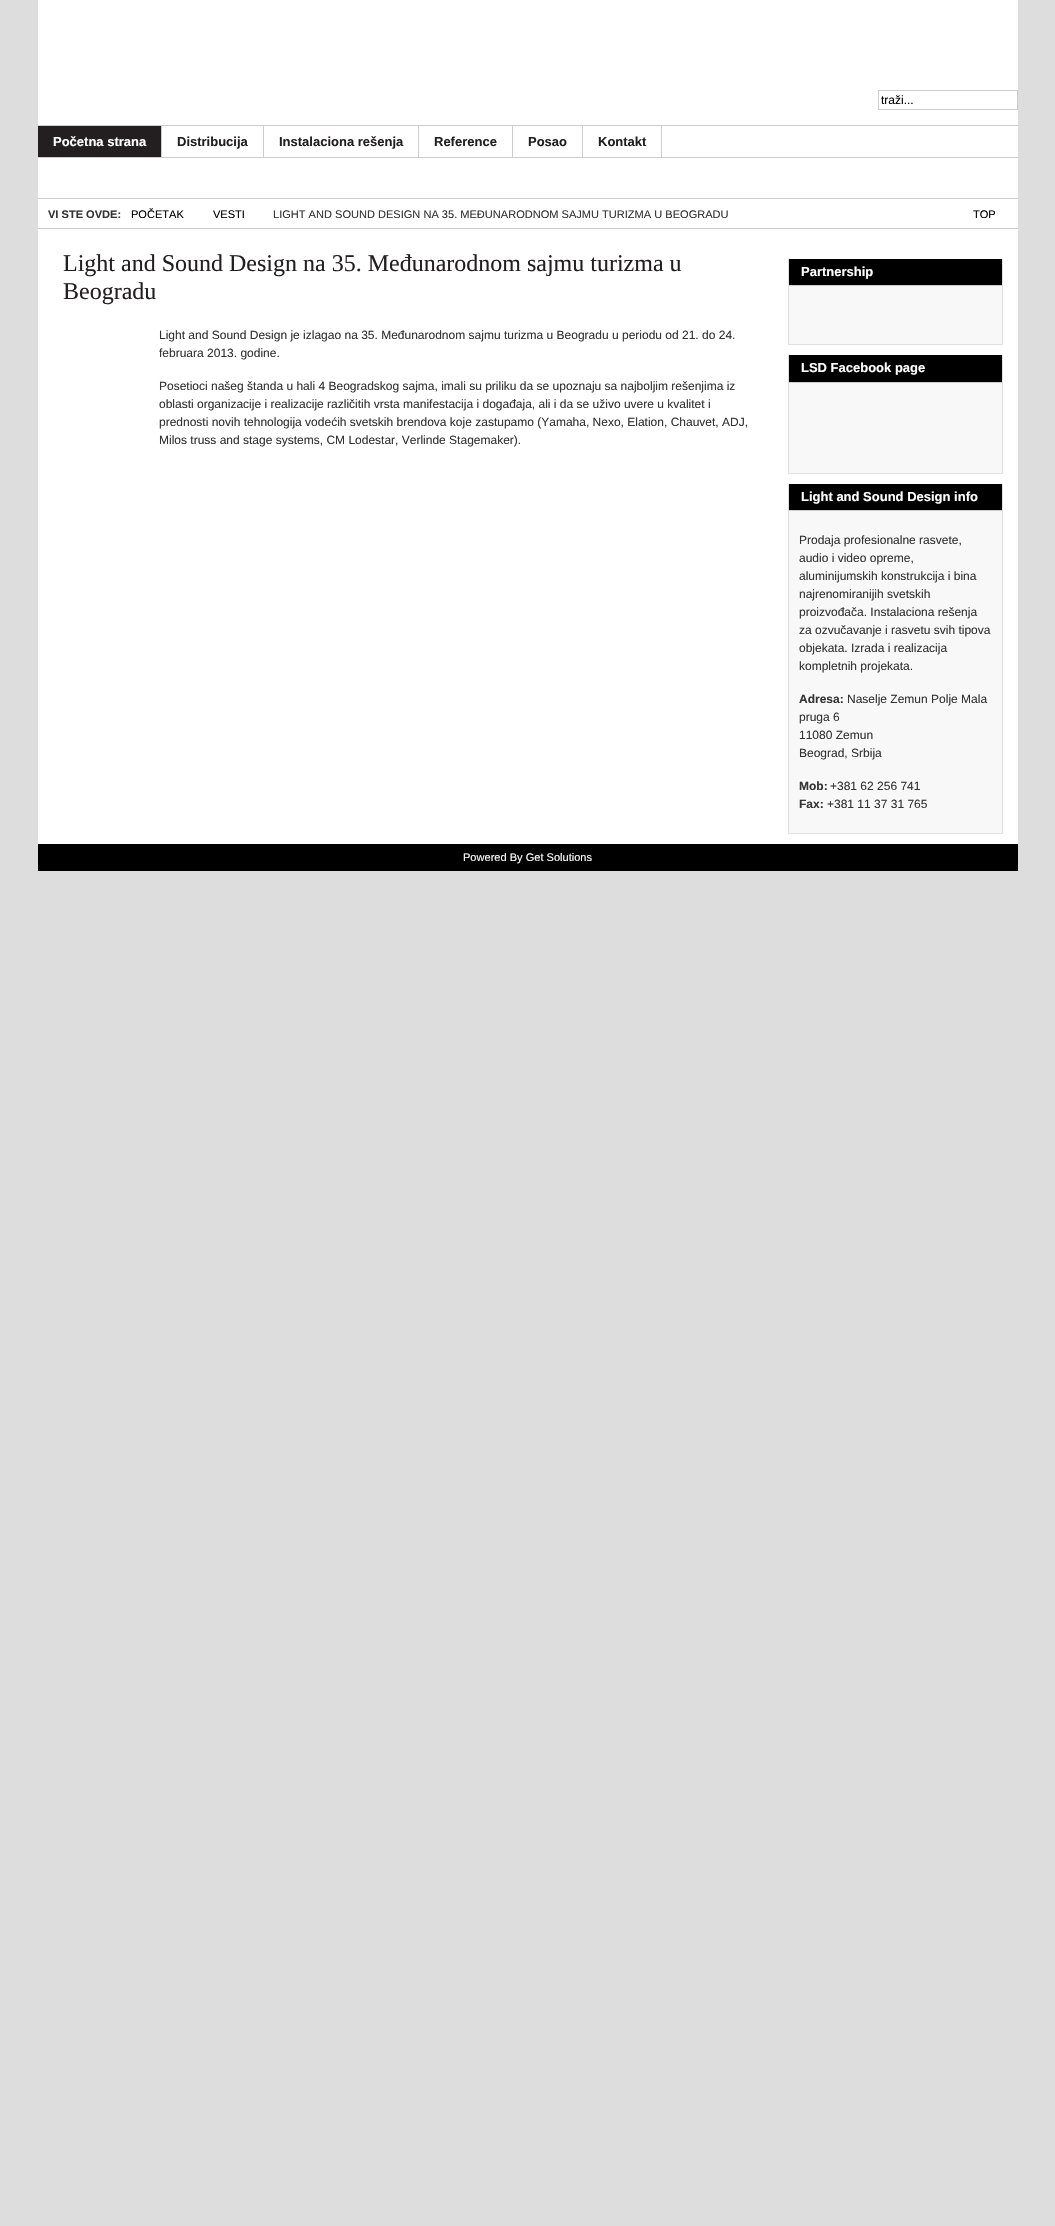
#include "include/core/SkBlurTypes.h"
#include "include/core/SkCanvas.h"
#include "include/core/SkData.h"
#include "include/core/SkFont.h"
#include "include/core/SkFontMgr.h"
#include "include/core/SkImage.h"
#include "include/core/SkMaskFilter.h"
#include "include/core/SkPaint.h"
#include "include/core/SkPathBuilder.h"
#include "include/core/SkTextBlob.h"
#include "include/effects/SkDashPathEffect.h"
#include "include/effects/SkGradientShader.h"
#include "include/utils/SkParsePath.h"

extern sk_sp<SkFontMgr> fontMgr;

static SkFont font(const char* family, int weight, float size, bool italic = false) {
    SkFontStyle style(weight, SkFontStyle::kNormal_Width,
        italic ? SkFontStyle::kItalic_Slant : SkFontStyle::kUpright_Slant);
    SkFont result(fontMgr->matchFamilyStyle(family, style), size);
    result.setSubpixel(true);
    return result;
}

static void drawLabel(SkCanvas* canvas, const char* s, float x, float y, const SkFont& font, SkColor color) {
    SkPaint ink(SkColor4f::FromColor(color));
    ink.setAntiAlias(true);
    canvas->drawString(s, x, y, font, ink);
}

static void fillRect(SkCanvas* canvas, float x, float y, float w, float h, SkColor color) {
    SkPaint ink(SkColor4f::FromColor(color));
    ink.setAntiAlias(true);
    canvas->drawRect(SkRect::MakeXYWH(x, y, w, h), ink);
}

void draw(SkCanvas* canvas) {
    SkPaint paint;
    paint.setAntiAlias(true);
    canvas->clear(0xFFDDDDDD);
    fillRect(canvas, 38, 0, 980, 125, 0xFFFFFFFF);
    fillRect(canvas, 38, 125, 980, 1, 0xFFCCCCCC);
    paint.setStroke(true);
    paint.setStrokeWidth(1);
    paint.setColor(0xFFCCCCCC);
    canvas->drawRect(SkRect::MakeXYWH(878.5f, 90.5f, 139, 19), paint);
    SkFont font1 = font("Liberation Sans", 400, 12);
    drawLabel(canvas, "traži...", 881, 104, font1, 0xFF000000);
    fillRect(canvas, 162, 126, 856, 31, 0xFFFFFFFF);
    fillRect(canvas, 38, 157, 980, 1, 0xFFCCCCCC);
    fillRect(canvas, 38, 126, 123, 31, 0xFF231F20);
    fillRect(canvas, 161, 126, 1, 31, 0xFFCCCCCC);
    SkFont font2 = font("Liberation Sans", 700, 13);
    drawLabel(canvas, "Početna strana", 53, 146, font2, 0xFFFFFFFF);
    fillRect(canvas, 263, 126, 1, 31, 0xFFCCCCCC);
    drawLabel(canvas, "Distribucija", 177, 146, font2, 0xFF231F20);
    fillRect(canvas, 418, 126, 1, 31, 0xFFCCCCCC);
    drawLabel(canvas, "Instalaciona rešenja", 279, 146, font2, 0xFF231F20);
    fillRect(canvas, 512, 126, 1, 31, 0xFFCCCCCC);
    drawLabel(canvas, "Reference", 434, 146, font2, 0xFF231F20);
    fillRect(canvas, 582, 126, 1, 31, 0xFFCCCCCC);
    drawLabel(canvas, "Posao", 528, 146, font2, 0xFF231F20);
    fillRect(canvas, 661, 126, 1, 31, 0xFFCCCCCC);
    drawLabel(canvas, "Kontakt", 598, 146, font2, 0xFF231F20);
    fillRect(canvas, 38, 158, 980, 40, 0xFFFFFFFF);
    fillRect(canvas, 38, 199, 980, 29, 0xFFFFFFFF);
    fillRect(canvas, 38, 198, 980, 1, 0xFFCCCCCC);
    fillRect(canvas, 38, 228, 980, 1, 0xFFCCCCCC);
    SkFont font3 = font("Liberation Sans", 700, 11.05f);
    drawLabel(canvas, "VI STE OVDE:", 48, 218, font3, 0xFF333333);
    SkFont font4 = font("Liberation Sans", 400, 11.05f);
    drawLabel(canvas, "POČETAK", 131, 218, font4, 0xFF000000);
    drawLabel(canvas, "VESTI", 213, 218, font4, 0xFF000000);
    drawLabel(canvas, "LIGHT AND SOUND DESIGN NA 35. MEĐUNARODNOM SAJMU TURIZMA U BEOGRADU", 273, 218, font4, 0xFF333333);
    drawLabel(canvas, "TOP", 973, 218, font4, 0xFF000000);
    fillRect(canvas, 38, 229, 980, 615, 0xFFFFFFFF);
    SkFont font5 = font("Liberation Serif", 400, 24);
    drawLabel(canvas, "Light and Sound Design na 35. Međunarodnom sajmu turizma u", 63, 271, font5, 0xFF231F20);
    drawLabel(canvas, "Beogradu", 63, 299, font5, 0xFF231F20);
    drawLabel(canvas, "Light and Sound Design je izlagao na 35. Međunarodnom sajmu turizma u Beogradu u periodu od 21. do 24.", 159, 339, font1, 0xFF333333);
    drawLabel(canvas, "februara 2013. godine.", 159, 357, font1, 0xFF333333);
    drawLabel(canvas, "Posetioci našeg štanda u hali 4 Beogradskog sajma, imali su priliku da se upoznaju sa najboljim rešenjima iz", 159, 390, font1, 0xFF333333);
    drawLabel(canvas, "oblasti organizacije i realizacije različitih vrsta manifestacija i događaja, ali i da se uživo uvere u kvalitet i", 159, 408, font1, 0xFF333333);
    drawLabel(canvas, "prednosti novih tehnologija vodećih svetskih brendova koje zastupamo (Yamaha, Nexo, Elation, Chauvet, ADJ,", 159, 426, font1, 0xFF333333);
    drawLabel(canvas, "Milos truss and stage systems, CM Lodestar, Verlinde Stagemaker).", 159, 444, font1, 0xFF333333);
    fillRect(canvas, 789, 286, 213, 58, 0xFFF8F8F8);
    fillRect(canvas, 1002, 259, 1, 86, 0xFFE1E0E0);
    fillRect(canvas, 788, 344, 215, 1, 0xFFE1E0E0);
    fillRect(canvas, 788, 259, 1, 86, 0xFFE1E0E0);
    fillRect(canvas, 789, 259, 213, 26, 0xFF000000);
    fillRect(canvas, 789, 285, 213, 1, 0xFFCCCCCC);
    drawLabel(canvas, "Partnership", 801, 276, font2, 0xFFFFFFFF);
    fillRect(canvas, 789, 383, 213, 90, 0xFFF8F8F8);
    fillRect(canvas, 1002, 355, 1, 119, 0xFFE1E0E0);
    fillRect(canvas, 788, 473, 215, 1, 0xFFE1E0E0);
    fillRect(canvas, 788, 355, 1, 119, 0xFFE1E0E0);
    fillRect(canvas, 789, 355, 213, 27, 0xFF000000);
    fillRect(canvas, 789, 382, 213, 1, 0xFFCCCCCC);
    drawLabel(canvas, "LSD Facebook page", 801, 372, font2, 0xFFFFFFFF);
    fillRect(canvas, 789, 511, 213, 322, 0xFFF8F8F8);
    fillRect(canvas, 1002, 484, 1, 350, 0xFFE1E0E0);
    fillRect(canvas, 788, 833, 215, 1, 0xFFE1E0E0);
    fillRect(canvas, 788, 484, 1, 350, 0xFFE1E0E0);
    fillRect(canvas, 789, 484, 213, 26, 0xFF000000);
    fillRect(canvas, 789, 510, 213, 1, 0xFFCCCCCC);
    drawLabel(canvas, "Light and Sound Design info", 801, 501, font2, 0xFFFFFFFF);
    drawLabel(canvas, "Prodaja profesionalne rasvete,", 799, 544, font1, 0xFF333333);
    drawLabel(canvas, "audio i video opreme,", 799, 562, font1, 0xFF333333);
    drawLabel(canvas, "aluminijumskih konstrukcija i bina", 799, 580, font1, 0xFF333333);
    drawLabel(canvas, "najrenomiranijih svetskih", 799, 598, font1, 0xFF333333);
    drawLabel(canvas, "proizvođača. Instalaciona rešenja", 799, 616, font1, 0xFF333333);
    drawLabel(canvas, "za ozvučavanje i rasvetu svih tipova", 799, 634, font1, 0xFF333333);
    drawLabel(canvas, "objekata. Izrada i realizacija", 799, 652, font1, 0xFF333333);
    drawLabel(canvas, "kompletnih projekata.", 799, 670, font1, 0xFF333333);
    SkFont font6 = font("Liberation Sans", 700, 12);
    drawLabel(canvas, "Adresa:", 799, 703, font6, 0xFF333333);
    drawLabel(canvas, "Naselje Zemun Polje Mala", 847, 703, font1, 0xFF333333);
    drawLabel(canvas, "pruga 6", 799, 721, font1, 0xFF333333);
    drawLabel(canvas, "11080 Zemun", 799, 739, font1, 0xFF333333);
    drawLabel(canvas, "Beograd, Srbija", 799, 757, font1, 0xFF333333);
    drawLabel(canvas, "Mob:", 799, 790, font6, 0xFF333333);
    drawLabel(canvas, "+381 62 256 741", 830, 790, font1, 0xFF333333);
    drawLabel(canvas, "Fax:", 799, 808, font6, 0xFF333333);
    drawLabel(canvas, "+381 11 37 31 765", 827, 808, font1, 0xFF333333);
    fillRect(canvas, 38, 844, 980, 27, 0xFF000000);
    drawLabel(canvas, "Powered By Get Solutions", 463, 861, font4, 0xFFFFFFFF);
}
